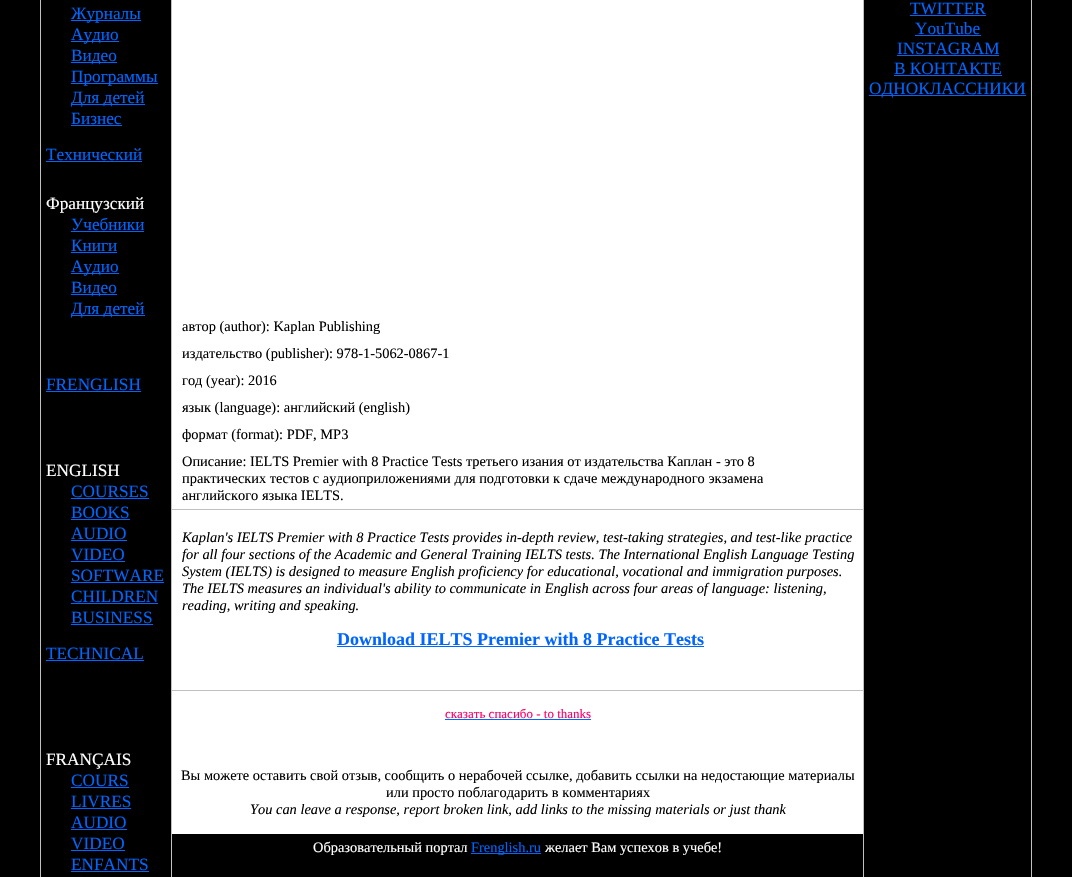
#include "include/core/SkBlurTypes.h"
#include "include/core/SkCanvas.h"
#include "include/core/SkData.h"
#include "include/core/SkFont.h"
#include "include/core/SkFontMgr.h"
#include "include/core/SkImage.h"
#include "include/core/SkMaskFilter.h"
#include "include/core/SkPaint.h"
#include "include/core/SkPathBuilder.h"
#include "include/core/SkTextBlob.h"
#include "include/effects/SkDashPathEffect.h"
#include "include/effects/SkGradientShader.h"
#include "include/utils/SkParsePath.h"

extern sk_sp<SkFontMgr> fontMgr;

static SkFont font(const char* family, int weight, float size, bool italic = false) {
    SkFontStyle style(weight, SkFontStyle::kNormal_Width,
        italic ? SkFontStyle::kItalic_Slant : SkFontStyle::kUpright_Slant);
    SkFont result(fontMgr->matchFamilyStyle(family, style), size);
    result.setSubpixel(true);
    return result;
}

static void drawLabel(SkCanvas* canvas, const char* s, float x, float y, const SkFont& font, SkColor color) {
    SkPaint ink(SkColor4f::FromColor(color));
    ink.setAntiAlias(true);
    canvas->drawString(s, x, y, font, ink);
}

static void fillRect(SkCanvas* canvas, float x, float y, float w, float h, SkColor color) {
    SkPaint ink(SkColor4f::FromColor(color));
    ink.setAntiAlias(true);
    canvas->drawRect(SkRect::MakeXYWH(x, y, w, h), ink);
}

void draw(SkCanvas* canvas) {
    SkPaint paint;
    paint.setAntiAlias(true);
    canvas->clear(0xFF000000);
    fillRect(canvas, 1031, 0, 1, 877, 0xFFC0C0C0);
    fillRect(canvas, 40, 0, 1, 877, 0xFFC0C0C0);
    fillRect(canvas, 172, 0, 644, 509, 0xFFFFFFFF);
    fillRect(canvas, 816, 0, 47, 509, 0xFFFFFFFF);
    fillRect(canvas, 171, 509, 693, 1, 0xFFC0C0C0);
    fillRect(canvas, 171, 690, 693, 1, 0xFFC0C0C0);
    fillRect(canvas, 171, 0, 1, 877, 0xFFC0C0C0);
    fillRect(canvas, 71, 20, 70, 1, 0xFF0066FF);
    SkFont font1 = font("Liberation Serif", 400, 17.25f);
    drawLabel(canvas, "Журналы", 71, 19, font1, 0xFF0066FF);
    fillRect(canvas, 71, 41, 48, 1, 0xFF0066FF);
    drawLabel(canvas, "Аудио", 71, 40, font1, 0xFF0066FF);
    fillRect(canvas, 71, 62, 46, 1, 0xFF0066FF);
    drawLabel(canvas, "Видео", 71, 61, font1, 0xFF0066FF);
    fillRect(canvas, 71, 83, 87, 1, 0xFF0066FF);
    drawLabel(canvas, "Программы", 71, 82, font1, 0xFF0066FF);
    fillRect(canvas, 71, 104, 74, 1, 0xFF0066FF);
    drawLabel(canvas, "Для детей", 71, 103, font1, 0xFF0066FF);
    drawLabel(canvas, "Бизнес", 71, 124, font1, 0xFF0066FF);
    fillRect(canvas, 71, 125, 51, 1, 0xFF0066FF);
    drawLabel(canvas, "Технический", 46, 160, font1, 0xFF0066FF);
    fillRect(canvas, 46, 161, 96, 1, 0xFF0066FF);
    drawLabel(canvas, "Французский", 46, 209, font1, 0xFFFFFFFF);
    drawLabel(canvas, "Учебники", 71, 230, font1, 0xFF0066FF);
    fillRect(canvas, 71, 231, 73, 1, 0xFF0066FF);
    drawLabel(canvas, "Книги", 71, 251, font1, 0xFF0066FF);
    fillRect(canvas, 71, 252, 46, 1, 0xFF0066FF);
    fillRect(canvas, 71, 273, 48, 1, 0xFF0066FF);
    drawLabel(canvas, "Аудио", 71, 272, font1, 0xFF0066FF);
    fillRect(canvas, 71, 294, 46, 1, 0xFF0066FF);
    drawLabel(canvas, "Видео", 71, 293, font1, 0xFF0066FF);
    fillRect(canvas, 71, 315, 74, 1, 0xFF0066FF);
    drawLabel(canvas, "Для детей", 71, 314, font1, 0xFF0066FF);
    drawLabel(canvas, "FRENGLISH", 46, 390, font1, 0xFF0066FF);
    fillRect(canvas, 46, 391, 95, 1, 0xFF0066FF);
    drawLabel(canvas, "ENGLISH", 46, 476, font1, 0xFFFFFFFF);
    drawLabel(canvas, "COURSES", 71, 497, font1, 0xFF0066FF);
    fillRect(canvas, 71, 498, 78, 1, 0xFF0066FF);
    drawLabel(canvas, "BOOKS", 71, 518, font1, 0xFF0066FF);
    fillRect(canvas, 71, 519, 59, 1, 0xFF0066FF);
    drawLabel(canvas, "AUDIO", 71, 539, font1, 0xFF0066FF);
    fillRect(canvas, 71, 540, 56, 1, 0xFF0066FF);
    drawLabel(canvas, "VIDEO", 71, 560, font1, 0xFF0066FF);
    fillRect(canvas, 71, 561, 54, 1, 0xFF0066FF);
    drawLabel(canvas, "SOFTWARE", 71, 581, font1, 0xFF0066FF);
    fillRect(canvas, 71, 582, 93, 1, 0xFF0066FF);
    drawLabel(canvas, "CHILDREN", 71, 602, font1, 0xFF0066FF);
    fillRect(canvas, 71, 603, 87, 1, 0xFF0066FF);
    drawLabel(canvas, "BUSINESS", 71, 623, font1, 0xFF0066FF);
    fillRect(canvas, 71, 624, 82, 1, 0xFF0066FF);
    drawLabel(canvas, "TECHNICAL", 46, 659, font1, 0xFF0066FF);
    fillRect(canvas, 46, 660, 98, 1, 0xFF0066FF);
    drawLabel(canvas, "FRANÇAIS", 46, 765, font1, 0xFFFFFFFF);
    drawLabel(canvas, "COURS", 71, 786, font1, 0xFF0066FF);
    fillRect(canvas, 71, 787, 58, 1, 0xFF0066FF);
    drawLabel(canvas, "LIVRES", 71, 807, font1, 0xFF0066FF);
    fillRect(canvas, 71, 808, 60, 1, 0xFF0066FF);
    drawLabel(canvas, "AUDIO", 71, 828, font1, 0xFF0066FF);
    fillRect(canvas, 71, 829, 56, 1, 0xFF0066FF);
    drawLabel(canvas, "VIDEO", 71, 849, font1, 0xFF0066FF);
    fillRect(canvas, 71, 850, 54, 1, 0xFF0066FF);
    drawLabel(canvas, "ENFANTS", 71, 870, font1, 0xFF0066FF);
    fillRect(canvas, 71, 871, 78, 1, 0xFF0066FF);
    fillRect(canvas, 863, 0, 1, 877, 0xFFC0C0C0);
    drawLabel(canvas, "TWITTER", 910, 14, font1, 0xFF0066FF);
    fillRect(canvas, 910, 15, 76, 1, 0xFF0066FF);
    drawLabel(canvas, "YouTube", 915, 34, font1, 0xFF0066FF);
    fillRect(canvas, 915, 35, 66, 1, 0xFF0066FF);
    drawLabel(canvas, "INSTAGRAM", 897, 54, font1, 0xFF0066FF);
    fillRect(canvas, 897, 55, 102, 1, 0xFF0066FF);
    drawLabel(canvas, "В КОНТАКТЕ", 894, 74, font1, 0xFF0066FF);
    fillRect(canvas, 894, 75, 108, 1, 0xFF0066FF);
    fillRect(canvas, 869, 95, 157, 1, 0xFF0066FF);
    drawLabel(canvas, "ОДНОКЛАССНИКИ", 869, 94, font1, 0xFF0066FF);
    SkFont font2 = font("Liberation Serif", 400, 14.4f);
    drawLabel(canvas, "автор (author): Kaplan Publishing", 182, 331, font2, 0xFF000000);
    drawLabel(canvas, "издательство (publisher): 978-1-5062-0867-1", 182, 358, font2, 0xFF000000);
    drawLabel(canvas, "год (year): 2016", 182, 385, font2, 0xFF000000);
    drawLabel(canvas, "язык (language): английский (english)", 182, 412, font2, 0xFF000000);
    drawLabel(canvas, "формат (format): PDF, MP3", 182, 439, font2, 0xFF000000);
    drawLabel(canvas, "Описание: IELTS Premier with 8 Practice Tests третьего изания от издательства Каплан - это 8", 182, 466, font2, 0xFF000000);
    drawLabel(canvas, "практических тестов с аудиоприложениями для подготовки к сдаче международного экзамена", 182, 483, font2, 0xFF000000);
    drawLabel(canvas, "английского языка IELTS.", 182, 500, font2, 0xFF000000);
    fillRect(canvas, 172, 510, 691, 180, 0xFFFFFFFF);
    SkFont font3 = font("Liberation Serif", 400, 14.4f, true);
    drawLabel(canvas, "Kaplan's IELTS Premier with 8 Practice Tests provides in-depth review, test-taking strategies, and test-like practice", 182, 542, font3, 0xFF000000);
    drawLabel(canvas, "for all four sections of the Academic and General Training IELTS tests. The International English Language Testing", 182, 559, font3, 0xFF000000);
    drawLabel(canvas, "System (IELTS) is designed to measure English proficiency for educational, vocational and immigration purposes.", 182, 576, font3, 0xFF000000);
    drawLabel(canvas, "The IELTS measures an individual's ability to communicate in English across four areas of language: listening,", 182, 593, font3, 0xFF000000);
    drawLabel(canvas, "reading, writing and speaking.", 182, 610, font3, 0xFF000000);
    SkFont font4 = font("Liberation Serif", 700, 18);
    drawLabel(canvas, "Download IELTS Premier with 8 Practice Tests", 337, 645, font4, 0xFF0066FF);
    fillRect(canvas, 337, 646, 367, 1, 0xFF0066FF);
    fillRect(canvas, 172, 691, 691, 143, 0xFFFFFFFF);
    SkFont font5 = font("Liberation Serif", 400, 13);
    drawLabel(canvas, "сказать спасибо - to thanks", 445, 718, font5, 0xFFFF0066);
    fillRect(canvas, 445, 719, 146, 1, 0xFF0066FF);
    drawLabel(canvas, "Вы можете оставить свой отзыв, сообщить о нерабочей ссылке, добавить ссылки на недостающие материалы", 181, 780, font2, 0xFF000000);
    drawLabel(canvas, "или просто поблагодарить в комментариях", 386, 797, font2, 0xFF000000);
    drawLabel(canvas, "You can leave a response, report broken link, add links to the missing materials or just thank", 250, 814, font3, 0xFF000000);
    drawLabel(canvas, "Образовательный портал", 313, 852, font2, 0xFFFFFFFF);
    fillRect(canvas, 471, 853, 70, 1, 0xFF0066FF);
    drawLabel(canvas, "Frenglish.ru", 471, 852, font2, 0xFF0066FF);
    drawLabel(canvas, "желает Вам успехов в учебе!", 545, 852, font2, 0xFFFFFFFF);
}
